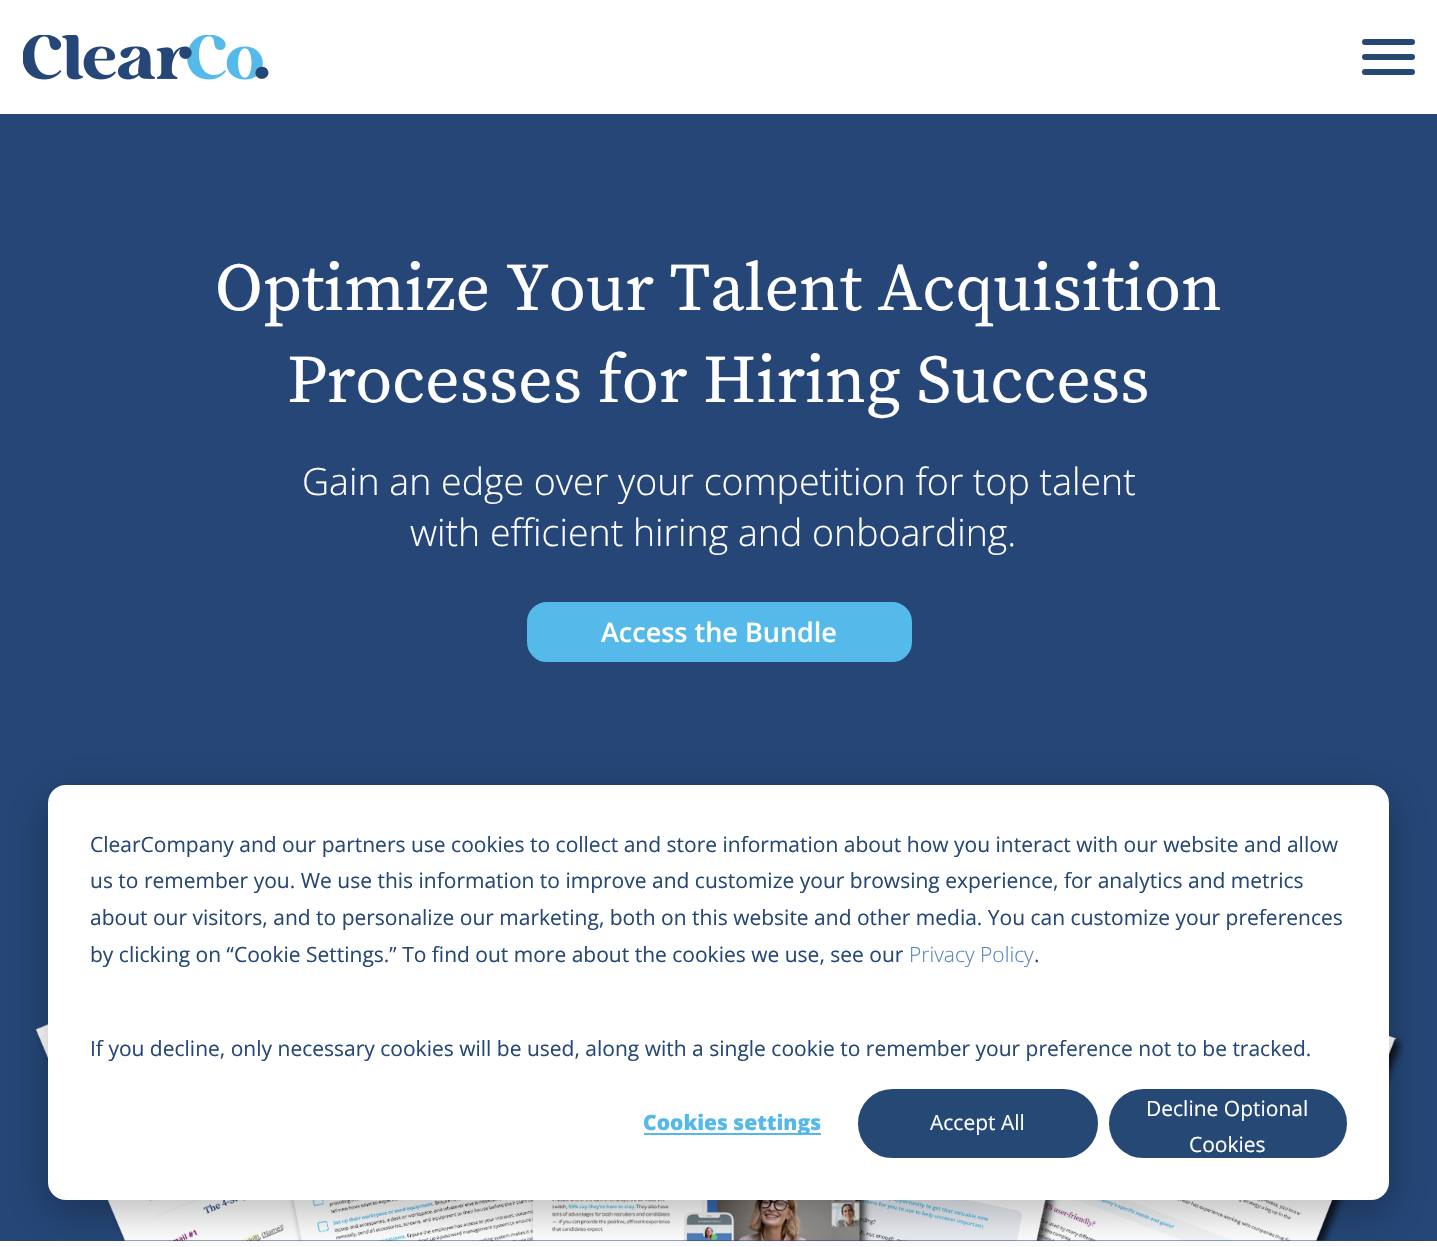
#include "include/core/SkBlurTypes.h"
#include "include/core/SkCanvas.h"
#include "include/core/SkData.h"
#include "include/core/SkFont.h"
#include "include/core/SkFontMgr.h"
#include "include/core/SkImage.h"
#include "include/core/SkMaskFilter.h"
#include "include/core/SkPaint.h"
#include "include/core/SkPathBuilder.h"
#include "include/core/SkTextBlob.h"
#include "include/effects/SkDashPathEffect.h"
#include "include/effects/SkGradientShader.h"
#include "include/utils/SkParsePath.h"

extern sk_sp<SkFontMgr> fontMgr;

static SkFont font(const char* family, int weight, float size, bool italic = false) {
    SkFontStyle style(weight, SkFontStyle::kNormal_Width,
        italic ? SkFontStyle::kItalic_Slant : SkFontStyle::kUpright_Slant);
    SkFont result(fontMgr->matchFamilyStyle(family, style), size);
    result.setSubpixel(true);
    return result;
}

static void drawLabel(SkCanvas* canvas, const char* s, float x, float y, const SkFont& font, SkColor color) {
    SkPaint ink(SkColor4f::FromColor(color));
    ink.setAntiAlias(true);
    canvas->drawString(s, x, y, font, ink);
}

static void fillRect(SkCanvas* canvas, float x, float y, float w, float h, SkColor color) {
    SkPaint ink(SkColor4f::FromColor(color));
    ink.setAntiAlias(true);
    canvas->drawRect(SkRect::MakeXYWH(x, y, w, h), ink);
}

static void fillRRect(SkCanvas* canvas, float x, float y, float w, float h, float radius, SkColor color) {
    SkPaint ink(SkColor4f::FromColor(color));
    ink.setAntiAlias(true);
    canvas->drawRoundRect(SkRect::MakeXYWH(x, y, w, h), radius, radius, ink);
}

static void drawPhoto(SkCanvas* canvas, const char* path, float x, float y, float w, float h) {
    auto image = SkImages::DeferredFromEncodedData(SkData::MakeFromFileName(path));
    canvas->drawImageRect(image, SkRect::MakeXYWH(x, y, w, h), SkSamplingOptions());
}

void draw(SkCanvas* canvas) {
    SkPaint paint;
    paint.setAntiAlias(true);
    canvas->clear(0xFFFFFFFF);
    drawPhoto(canvas, "assets/img1.png", 23, 35, 246, 45);
    fillRRect(canvas, 1362, 39, 53, 6, 3, 0xFF264875);
    fillRRect(canvas, 1362, 54, 53, 6, 3, 0xFF264875);
    fillRRect(canvas, 1362, 69, 53, 6, 3, 0xFF264875);
    fillRect(canvas, 0, 114, 1437, 1127, 0xFF254677);
    SkFont font1 = font("Source Serif Pro", 400, 67.5f);
    drawLabel(canvas, "Optimize Your Talent Acquisition", 215, 310, font1, 0xFFFFFFFF);
    drawLabel(canvas, "Processes for Hiring Success", 287, 402, font1, 0xFFFFFFFF);
    SkFont font2 = font("Open Sans", 300, 37.5f);
    drawLabel(canvas, "Gain an edge over your competition for top talent", 302, 495, font2, 0xFFFFFFFF);
    drawLabel(canvas, "with efficient hiring and onboarding.", 410, 546, font2, 0xFFFFFFFF);
    paint.setColor(0xFF55BAEA);
    canvas->drawRoundRect(SkRect::MakeXYWH(528.5f, 603.5f, 382, 57), 18.5f, 18.5f, paint);
    paint.setStroke(true);
    paint.setStrokeWidth(3);
    canvas->drawRoundRect(SkRect::MakeXYWH(528.5f, 603.5f, 382, 57), 18.5f, 18.5f, paint);
    SkFont font3 = font("Open Sans", 600, 27);
    drawLabel(canvas, "Access the Bundle", 601, 642, font3, 0xFFFFFFFF);
    drawPhoto(canvas, "assets/img2.png", 36, 1024, 1369, 217);
    paint.setStroke(false);
    paint.setColor(0x47000000);
    paint.setMaskFilter(SkMaskFilter::MakeBlur(kNormal_SkBlurStyle, 21));
    canvas->drawRoundRect(SkRect::MakeXYWH(48, 797, 1341, 415), 18, 18, paint);
    paint.setMaskFilter(nullptr);
    fillRRect(canvas, 48, 785, 1341, 415, 18, 0xFFFFFFFF);
    SkFont font4 = font("Open Sans", 400, 21);
    drawLabel(canvas, "ClearCompany and our partners use cookies to collect and store information about how you interact with our website and allow", 90, 852, font4, 0xFF264875);
    drawLabel(canvas, "us to remember you. We use this information to improve and customize your browsing experience, for analytics and metrics", 90, 888, font4, 0xFF264875);
    drawLabel(canvas, "about our visitors, and to personalize our marketing, both on this website and other media. You can customize your preferences", 90, 925, font4, 0xFF264875);
    drawLabel(canvas, "by clicking on “Cookie Settings.” To find out more about the cookies we use, see our", 90, 962, font4, 0xFF264875);
    SkFont font5 = font("Open Sans", 300, 21);
    drawLabel(canvas, "Privacy Policy", 909, 962, font5, 0xFF5585C1);
    drawLabel(canvas, ".", 1034, 962, font4, 0xFF264875);
    drawLabel(canvas, "If you decline, only necessary cookies will be used, along with a single cookie to remember your preference not to be tracked.", 90, 1056, font4, 0xFF264875);
    fillRect(canvas, 644, 1133, 177, 2, 0xFF55B8E8);
    SkFont font6 = font("Open Sans", 800, 21);
    drawLabel(canvas, "Cookies settings", 643, 1130, font6, 0xFF55B8E8);
    paint.setColor(0xFF264875);
    canvas->drawRoundRect(SkRect::MakeXYWH(859, 1090, 238, 67), 33.5f, 33.5f, paint);
    paint.setStroke(true);
    paint.setStrokeWidth(2);
    canvas->drawRoundRect(SkRect::MakeXYWH(859, 1090, 238, 67), 33.5f, 33.5f, paint);
    drawLabel(canvas, "Accept All", 930, 1130, font4, 0xFFFFFFFF);
    paint.setStroke(false);
    canvas->drawRoundRect(SkRect::MakeXYWH(1110, 1090, 236, 67), 33.5f, 33.5f, paint);
    paint.setStroke(true);
    canvas->drawRoundRect(SkRect::MakeXYWH(1110, 1090, 236, 67), 33.5f, 33.5f, paint);
    drawLabel(canvas, "Decline Optional", 1146, 1116, font4, 0xFFFFFFFF);
    drawLabel(canvas, "Cookies", 1189, 1152, font4, 0xFFFFFFFF);
}
